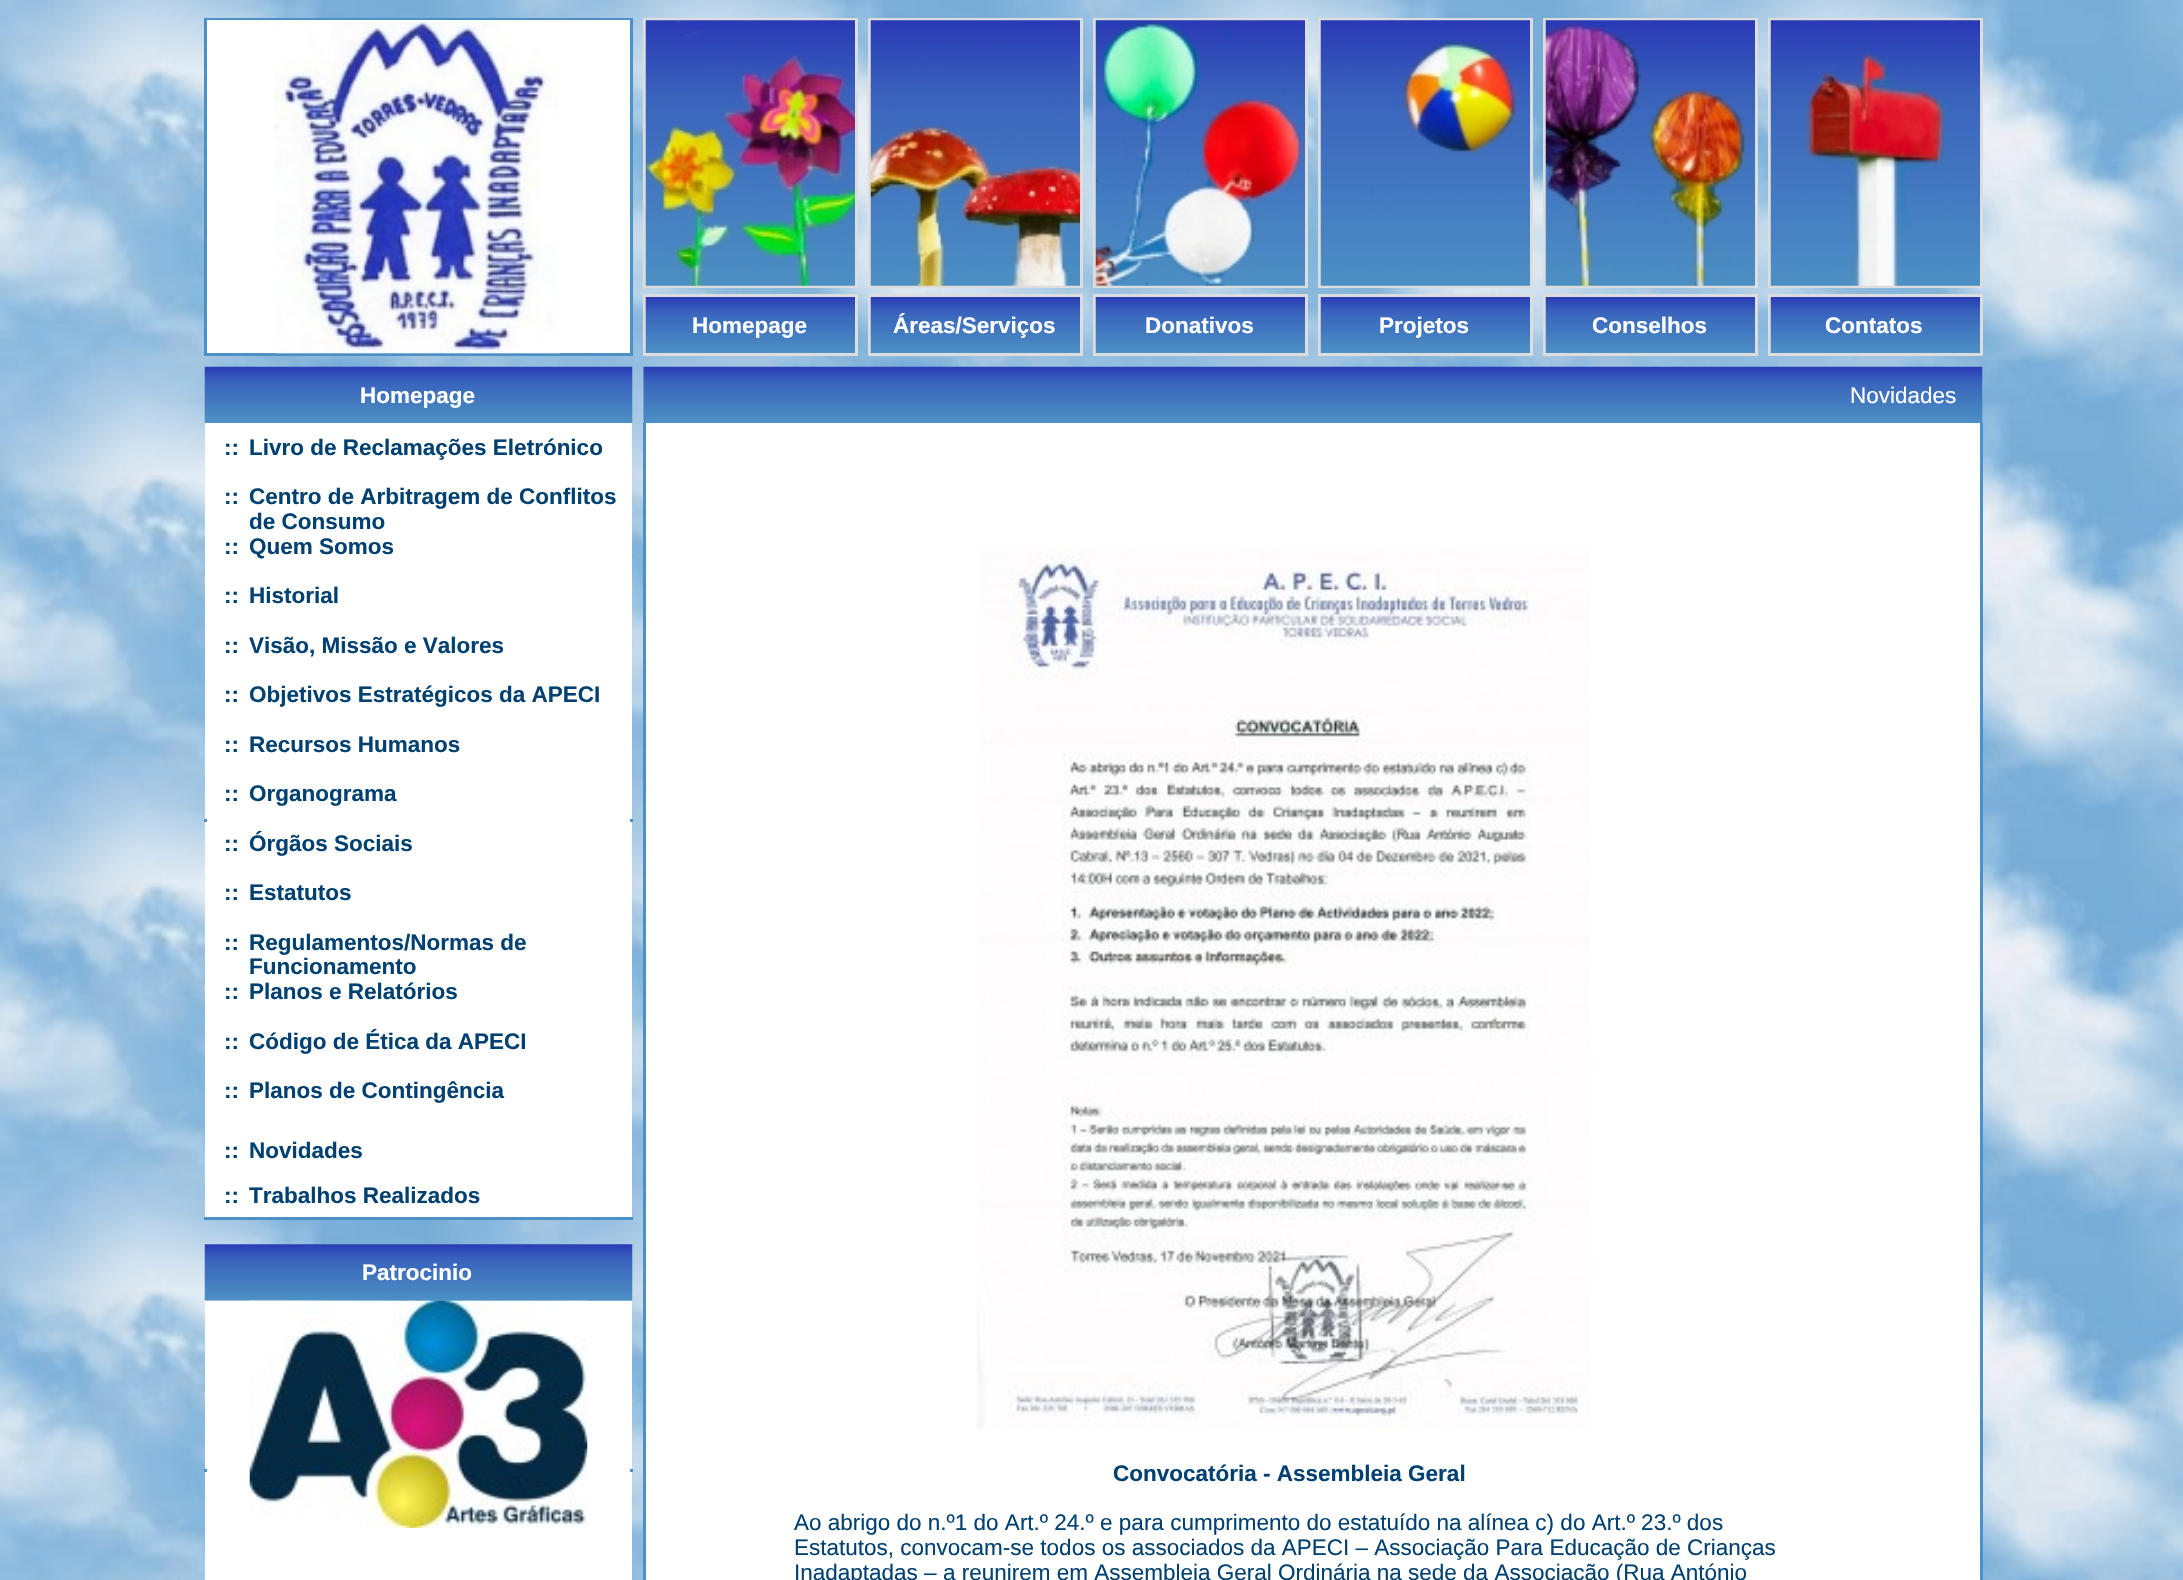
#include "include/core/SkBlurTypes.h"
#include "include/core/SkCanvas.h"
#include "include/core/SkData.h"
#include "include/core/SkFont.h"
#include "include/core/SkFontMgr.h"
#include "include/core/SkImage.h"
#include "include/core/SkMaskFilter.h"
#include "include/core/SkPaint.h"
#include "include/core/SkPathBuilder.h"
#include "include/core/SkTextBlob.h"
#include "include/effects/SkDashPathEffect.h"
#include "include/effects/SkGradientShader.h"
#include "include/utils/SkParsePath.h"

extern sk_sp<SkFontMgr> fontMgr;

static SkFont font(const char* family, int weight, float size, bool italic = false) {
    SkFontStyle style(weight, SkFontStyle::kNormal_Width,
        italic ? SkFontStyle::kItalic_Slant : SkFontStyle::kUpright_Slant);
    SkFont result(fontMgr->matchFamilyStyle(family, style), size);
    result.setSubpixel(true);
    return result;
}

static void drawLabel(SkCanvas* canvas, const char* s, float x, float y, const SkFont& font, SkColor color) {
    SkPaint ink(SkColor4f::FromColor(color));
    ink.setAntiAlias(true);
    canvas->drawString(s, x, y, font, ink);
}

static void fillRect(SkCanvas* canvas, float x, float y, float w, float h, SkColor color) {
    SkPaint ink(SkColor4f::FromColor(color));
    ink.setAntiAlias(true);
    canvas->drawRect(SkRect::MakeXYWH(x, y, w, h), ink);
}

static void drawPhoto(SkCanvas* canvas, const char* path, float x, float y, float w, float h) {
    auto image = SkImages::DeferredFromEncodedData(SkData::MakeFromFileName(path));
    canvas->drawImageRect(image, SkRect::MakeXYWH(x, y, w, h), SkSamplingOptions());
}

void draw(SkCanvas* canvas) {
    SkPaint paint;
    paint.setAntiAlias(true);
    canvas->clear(0xFFFFFFFF);
    drawPhoto(canvas, "assets/img1.png", 0, 0, 2183, 1580);
    fillRect(canvas, 204, 18, 429, 338, 0xFF4D90C5);
    fillRect(canvas, 207, 20, 423, 333, 0xFFFFFFFF);
    drawPhoto(canvas, "assets/img2.png", 274, 20, 287, 334);
    fillRect(canvas, 643, 18, 215, 270, 0xFFDDDDDD);
    drawPhoto(canvas, "assets/img3.png", 645, 20, 210, 266);
    fillRect(canvas, 868, 18, 215, 270, 0xFFDDDDDD);
    drawPhoto(canvas, "assets/img4.png", 870, 20, 210, 266);
    fillRect(canvas, 1093, 18, 215, 270, 0xFFDDDDDD);
    drawPhoto(canvas, "assets/img5.png", 1095, 20, 210, 266);
    fillRect(canvas, 1318, 18, 215, 270, 0xFFDDDDDD);
    drawPhoto(canvas, "assets/img6.png", 1320, 20, 210, 266);
    fillRect(canvas, 1543, 18, 215, 270, 0xFFDDDDDD);
    drawPhoto(canvas, "assets/img7.png", 1545, 20, 210, 266);
    fillRect(canvas, 1768, 18, 215, 270, 0xFFDDDDDD);
    drawPhoto(canvas, "assets/img8.png", 1770, 20, 210, 266);
    fillRect(canvas, 643, 294, 215, 62, 0xFFDDDDDD);
    fillRect(canvas, 868, 294, 215, 62, 0xFFDDDDDD);
    fillRect(canvas, 1093, 294, 215, 62, 0xFFDDDDDD);
    fillRect(canvas, 1318, 294, 215, 62, 0xFFDDDDDD);
    fillRect(canvas, 1543, 294, 215, 62, 0xFFDDDDDD);
    fillRect(canvas, 1768, 294, 215, 62, 0xFFDDDDDD);
    drawPhoto(canvas, "assets/img9.png", 645, 297, 210, 56);
    SkFont font1 = font("Liberation Sans", 700, 22.5f);
    drawLabel(canvas, "Homepage", 692, 333, font1, 0xFFFFFFFF);
    drawPhoto(canvas, "assets/img9.png", 870, 297, 210, 56);
    drawLabel(canvas, "Áreas/Serviços", 893, 333, font1, 0xFFFFFFFF);
    drawPhoto(canvas, "assets/img9.png", 1095, 297, 210, 56);
    drawLabel(canvas, "Donativos", 1145, 333, font1, 0xFFFFFFFF);
    drawPhoto(canvas, "assets/img9.png", 1320, 297, 210, 56);
    drawLabel(canvas, "Projetos", 1379, 333, font1, 0xFFFFFFFF);
    drawPhoto(canvas, "assets/img9.png", 1545, 297, 210, 56);
    drawLabel(canvas, "Conselhos", 1592, 333, font1, 0xFFFFFFFF);
    drawPhoto(canvas, "assets/img9.png", 1770, 297, 210, 56);
    drawLabel(canvas, "Contatos", 1825, 333, font1, 0xFFFFFFFF);
    drawPhoto(canvas, "assets/img10.png", 204, 366, 429, 57);
    drawLabel(canvas, "Homepage", 360, 403, font1, 0xFFFFFFFF);
    fillRect(canvas, 205, 423, 427, 794, 0xFFFFFFFF);
    fillRect(canvas, 204, 819, 3, 3, 0xFF4D90C5);
    drawLabel(canvas, "::", 224, 455, font1, 0xFF014171);
    drawLabel(canvas, "Livro de Reclamações Eletrónico", 249, 455, font1, 0xFF014171);
    drawLabel(canvas, "::", 224, 504, font1, 0xFF014171);
    drawLabel(canvas, "Centro de Arbitragem de Conflitos", 249, 504, font1, 0xFF014171);
    drawLabel(canvas, "de Consumo", 249, 529, font1, 0xFF014171);
    drawLabel(canvas, "::", 224, 554, font1, 0xFF014171);
    drawLabel(canvas, "Quem Somos", 249, 554, font1, 0xFF014171);
    drawLabel(canvas, "::", 224, 603, font1, 0xFF014171);
    drawLabel(canvas, "Historial", 249, 603, font1, 0xFF014171);
    drawLabel(canvas, "::", 224, 653, font1, 0xFF014171);
    drawLabel(canvas, "Visão, Missão e Valores", 249, 653, font1, 0xFF014171);
    drawLabel(canvas, "::", 224, 702, font1, 0xFF014171);
    drawLabel(canvas, "Objetivos Estratégicos da APECI", 249, 702, font1, 0xFF014171);
    drawLabel(canvas, "::", 224, 752, font1, 0xFF014171);
    drawLabel(canvas, "Recursos Humanos", 249, 752, font1, 0xFF014171);
    drawLabel(canvas, "::", 224, 801, font1, 0xFF014171);
    drawLabel(canvas, "Organograma", 249, 801, font1, 0xFF014171);
    drawLabel(canvas, "::", 224, 851, font1, 0xFF014171);
    drawLabel(canvas, "Órgãos Sociais", 249, 851, font1, 0xFF014171);
    drawLabel(canvas, "::", 224, 900, font1, 0xFF014171);
    drawLabel(canvas, "Estatutos", 249, 900, font1, 0xFF014171);
    drawLabel(canvas, "::", 224, 950, font1, 0xFF014171);
    drawLabel(canvas, "Regulamentos/Normas de", 249, 950, font1, 0xFF014171);
    drawLabel(canvas, "Funcionamento", 249, 974, font1, 0xFF014171);
    drawLabel(canvas, "::", 224, 999, font1, 0xFF014171);
    drawLabel(canvas, "Planos e Relatórios", 249, 999, font1, 0xFF014171);
    drawLabel(canvas, "::", 224, 1049, font1, 0xFF014171);
    drawLabel(canvas, "Código de Ética da APECI", 249, 1049, font1, 0xFF014171);
    drawLabel(canvas, "::", 224, 1098, font1, 0xFF014171);
    drawLabel(canvas, "Planos de Contingência", 249, 1098, font1, 0xFF014171);
    drawLabel(canvas, "::", 224, 1158, font1, 0xFF014171);
    drawLabel(canvas, "Novidades", 249, 1158, font1, 0xFF014171);
    drawLabel(canvas, "::", 224, 1203, font1, 0xFF014171);
    drawLabel(canvas, "Trabalhos Realizados", 249, 1203, font1, 0xFF014171);
    fillRect(canvas, 630, 819, 3, 3, 0xFF4D90C5);
    fillRect(canvas, 204, 1217, 429, 3, 0xFF4D90C5);
    drawPhoto(canvas, "assets/img11.png", 204, 1244, 429, 57);
    drawLabel(canvas, "Patrocinio", 362, 1280, font1, 0xFFFFFFFF);
    fillRect(canvas, 205, 1301, 427, 279, 0xFFFFFFFF);
    fillRect(canvas, 204, 1469, 3, 3, 0xFF4D90C5);
    drawPhoto(canvas, "assets/img12.png", 249, 1300, 339, 228);
    fillRect(canvas, 630, 1469, 3, 3, 0xFF4D90C5);
    drawPhoto(canvas, "assets/img13.png", 643, 366, 1340, 57);
    SkFont font2 = font("Liberation Sans", 400, 22.5f);
    drawLabel(canvas, "Novidades", 1850, 403, font2, 0xFFFFFFFF);
    fillRect(canvas, 643, 423, 3, 1157, 0xFF4D90C5);
    fillRect(canvas, 646, 423, 1334, 1157, 0xFFFFFFFF);
    drawPhoto(canvas, "assets/img14.png", 976, 546, 614, 885);
    drawLabel(canvas, "Convocatória - Assembleia Geral", 1113, 1481, font1, 0xFF014171);
    drawLabel(canvas, "Ao abrigo do n.º1 do Art.º 24.º e para cumprimento do estatuído na alínea c) do Art.º 23.º dos", 794, 1530, font2, 0xFF014171);
    drawLabel(canvas, "Estatutos, convocam-se todos os associados da APECI – Associação Para Educação de Crianças", 794, 1555, font2, 0xFF014171);
    drawLabel(canvas, "Inadaptadas – a reunirem em Assembleia Geral Ordinária na sede da Associação (Rua António", 794, 1580, font2, 0xFF014171);
    fillRect(canvas, 1980, 423, 3, 1157, 0xFF4D90C5);
}
